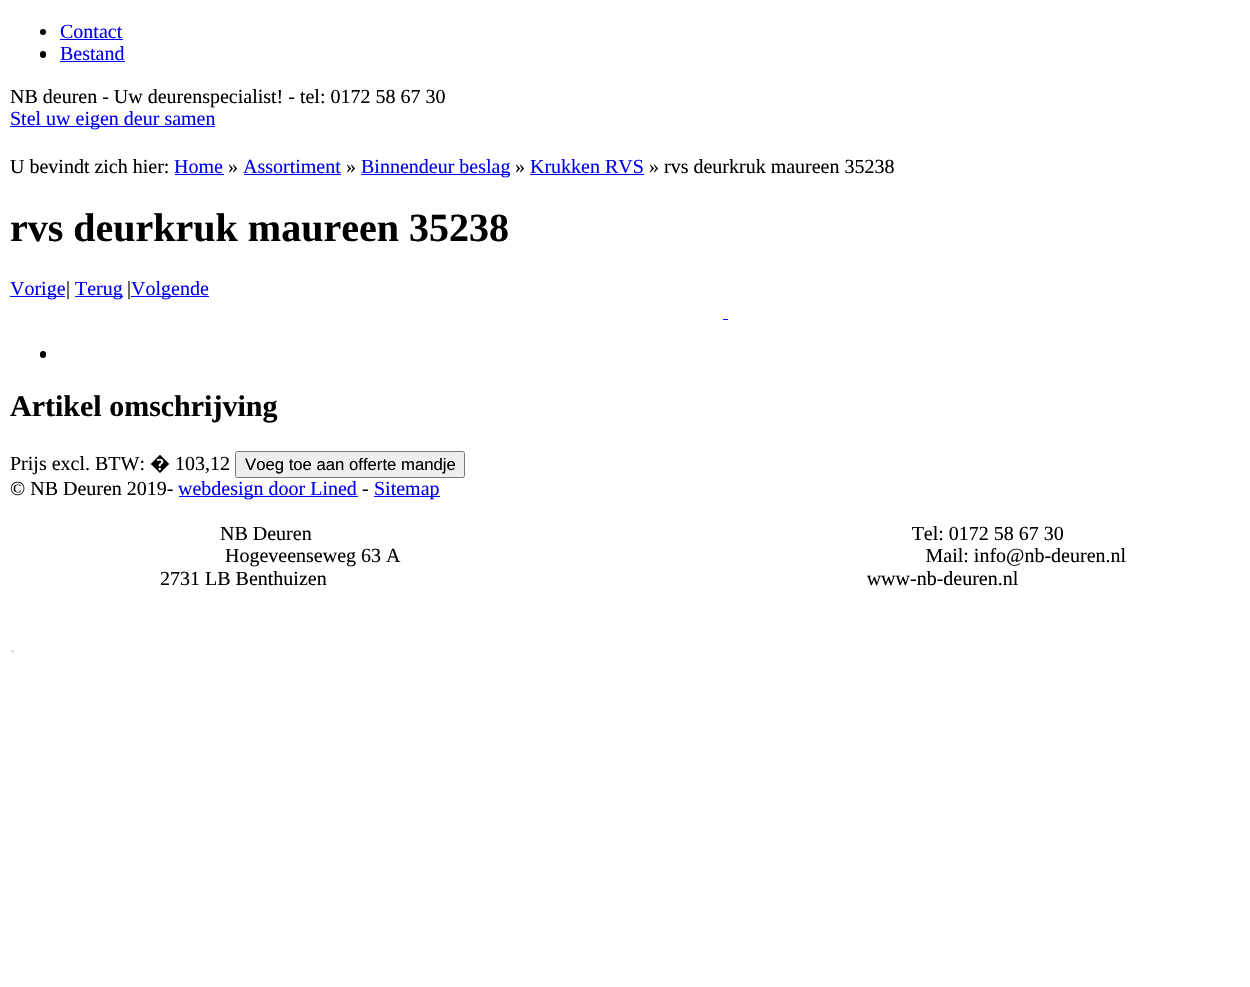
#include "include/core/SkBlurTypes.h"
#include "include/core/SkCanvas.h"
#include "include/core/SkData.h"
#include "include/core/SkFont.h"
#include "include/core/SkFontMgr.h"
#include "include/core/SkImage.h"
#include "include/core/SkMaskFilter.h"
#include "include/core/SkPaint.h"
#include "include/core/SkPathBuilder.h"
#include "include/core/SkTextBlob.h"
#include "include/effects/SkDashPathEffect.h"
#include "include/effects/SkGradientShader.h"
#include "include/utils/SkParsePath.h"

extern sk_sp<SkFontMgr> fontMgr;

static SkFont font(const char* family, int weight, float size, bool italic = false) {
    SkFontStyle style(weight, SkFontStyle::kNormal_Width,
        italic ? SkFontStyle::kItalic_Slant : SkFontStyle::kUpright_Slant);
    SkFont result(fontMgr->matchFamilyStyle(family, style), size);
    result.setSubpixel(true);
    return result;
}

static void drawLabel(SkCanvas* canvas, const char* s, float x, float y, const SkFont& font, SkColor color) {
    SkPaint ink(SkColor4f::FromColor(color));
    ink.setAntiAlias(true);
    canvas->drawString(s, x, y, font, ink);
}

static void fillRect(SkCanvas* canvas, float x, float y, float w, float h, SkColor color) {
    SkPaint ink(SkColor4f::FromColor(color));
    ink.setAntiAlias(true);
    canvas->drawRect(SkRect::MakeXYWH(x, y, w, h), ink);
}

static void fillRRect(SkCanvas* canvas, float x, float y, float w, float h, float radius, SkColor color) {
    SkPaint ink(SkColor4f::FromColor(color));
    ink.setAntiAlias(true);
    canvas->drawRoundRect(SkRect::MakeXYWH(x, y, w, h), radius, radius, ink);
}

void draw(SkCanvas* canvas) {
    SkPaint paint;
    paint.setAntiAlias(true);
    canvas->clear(0xFFFFFFFF);
    paint.setColor(0xFF000000);
    canvas->drawCircle(43, 32, 3, paint);
    SkFont font1 = font("Liberation Serif", 400, 20);
    drawLabel(canvas, "Contact", 60, 38, font1, 0xFF0000EE);
    fillRect(canvas, 60, 39, 63, 1, 0xFF0000EE);
    fillRRect(canvas, 40, 51, 6, 7, 3, 0xFF000000);
    drawLabel(canvas, "Bestand", 60, 60, font1, 0xFF0000EE);
    fillRect(canvas, 60, 61, 65, 1, 0xFF0000EE);
    drawLabel(canvas, "NB deuren - Uw deurenspecialist! - tel: 0172 58 67 30", 10, 103, font1, 0xFF000000);
    fillRect(canvas, 10, 126, 205, 1, 0xFF0000EE);
    drawLabel(canvas, "Stel uw eigen deur samen", 10, 125, font1, 0xFF0000EE);
    drawLabel(canvas, "U bevindt zich hier:", 10, 173, font1, 0xFF000000);
    drawLabel(canvas, "Home", 174, 173, font1, 0xFF0000EE);
    fillRect(canvas, 175, 174, 49, 1, 0xFF0000EE);
    drawLabel(canvas, "»", 228, 173, font1, 0xFF000000);
    drawLabel(canvas, "Assortiment", 243, 173, font1, 0xFF0000EE);
    fillRect(canvas, 244, 174, 97, 1, 0xFF0000EE);
    drawLabel(canvas, "»", 346, 173, font1, 0xFF000000);
    fillRect(canvas, 361, 174, 149, 1, 0xFF0000EE);
    drawLabel(canvas, "Binnendeur beslag", 361, 173, font1, 0xFF0000EE);
    drawLabel(canvas, "»", 515, 173, font1, 0xFF000000);
    drawLabel(canvas, "Krukken RVS", 530, 173, font1, 0xFF0000EE);
    fillRect(canvas, 530, 174, 114, 1, 0xFF0000EE);
    drawLabel(canvas, "» rvs deurkruk maureen 35238", 649, 173, font1, 0xFF000000);
    SkFont font2 = font("Liberation Serif", 700, 40);
    drawLabel(canvas, "rvs deurkruk maureen 35238", 10, 241, font2, 0xFF000000);
    fillRect(canvas, 10, 296, 55, 1, 0xFF0000EE);
    drawLabel(canvas, "Vorige", 10, 295, font1, 0xFF0000EE);
    drawLabel(canvas, "|", 66, 295, font1, 0xFF000000);
    fillRect(canvas, 75, 296, 48, 1, 0xFF0000EE);
    drawLabel(canvas, "Terug", 75, 295, font1, 0xFF0000EE);
    drawLabel(canvas, "|", 127, 295, font1, 0xFF000000);
    fillRect(canvas, 131, 296, 78, 1, 0xFF0000EE);
    drawLabel(canvas, "Volgende", 131, 295, font1, 0xFF0000EE);
    fillRect(canvas, 723, 319, 5, 1, 0xFF0000EE);
    fillRRect(canvas, 40, 351, 6, 7, 3, 0xFF000000);
    SkFont font3 = font("Liberation Serif", 700, 30);
    drawLabel(canvas, "Artikel omschrijving", 10, 416, font3, 0xFF000000);
    drawLabel(canvas, "Prijs excl. BTW:", 10, 470, font1, 0xFF000000);
    SkFont font4 = font("Noto Sans", 400, 20);
    drawLabel(canvas, "�", 150, 470, font4, 0xFF000000);
    drawLabel(canvas, "103,12", 175, 470, font1, 0xFF000000);
    paint.setColor(0xFFEFEFEF);
    canvas->drawRoundRect(SkRect::MakeXYWH(235.5f, 451.5f, 229, 26), 2, 2, paint);
    paint.setStroke(true);
    paint.setStrokeWidth(1);
    paint.setColor(0xFF767676);
    canvas->drawRoundRect(SkRect::MakeXYWH(235.5f, 451.5f, 229, 26), 2, 2, paint);
    SkFont font5 = font("Liberation Sans", 400, 16.7f);
    drawLabel(canvas, "Voeg toe aan offerte mandje", 245, 470, font5, 0xFF000000);
    drawLabel(canvas, "© NB Deuren 2019-", 10, 495, font1, 0xFF000000);
    fillRect(canvas, 179, 496, 179, 1, 0xFF0000EE);
    drawLabel(canvas, "webdesign door Lined", 178, 495, font1, 0xFF0000EE);
    drawLabel(canvas, "-", 362, 495, font1, 0xFF000000);
    fillRect(canvas, 374, 496, 66, 1, 0xFF0000EE);
    drawLabel(canvas, "Sitemap", 374, 495, font1, 0xFF0000EE);
    drawLabel(canvas, "NB Deuren                                                                                                                        Tel: 0172 58 67 30", 220, 540, font1, 0xFF000000);
    drawLabel(canvas, "Hogeveenseweg 63 A                                                                                                         Mail: info@nb-deuren.nl", 225, 562, font1, 0xFF000000);
    drawLabel(canvas, "2731 LB Benthuizen                                                                                                            www-nb-deuren.nl", 160, 585, font1, 0xFF000000);
    drawLabel(canvas, ".", 10, 652, font1, 0xFFD3D3D3);
}
